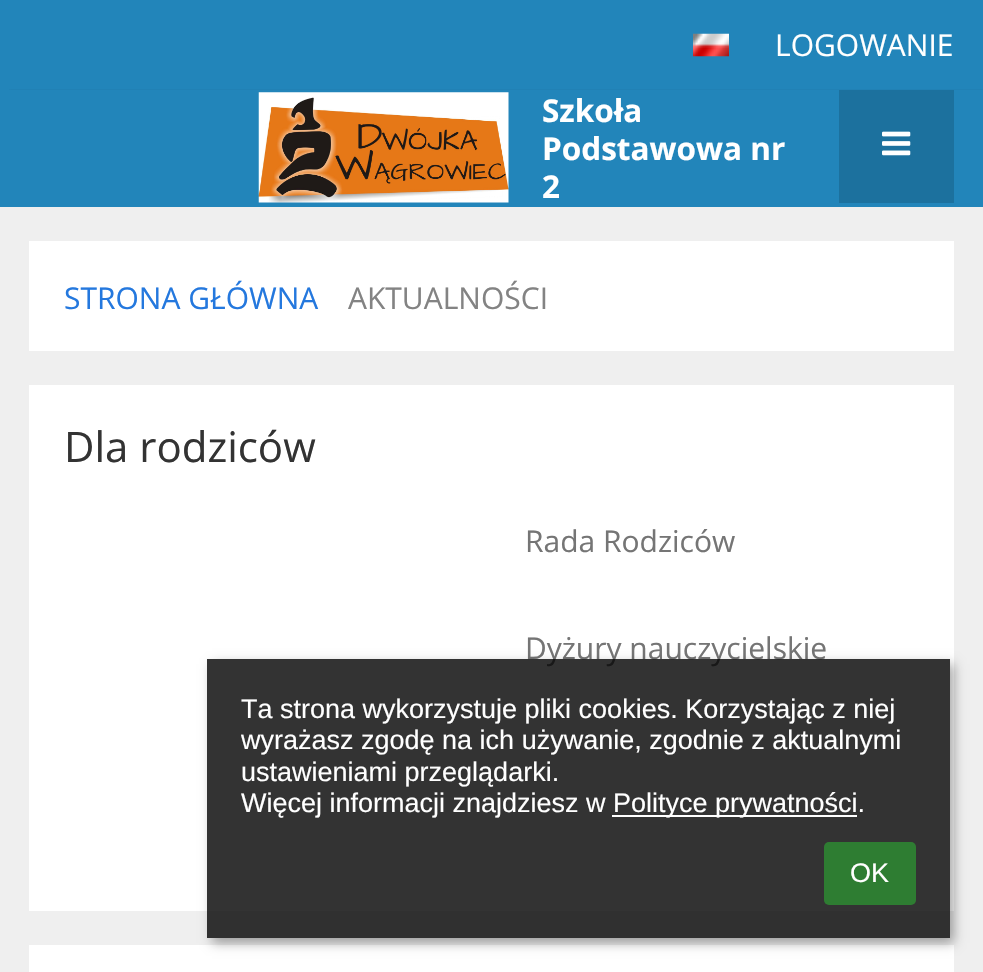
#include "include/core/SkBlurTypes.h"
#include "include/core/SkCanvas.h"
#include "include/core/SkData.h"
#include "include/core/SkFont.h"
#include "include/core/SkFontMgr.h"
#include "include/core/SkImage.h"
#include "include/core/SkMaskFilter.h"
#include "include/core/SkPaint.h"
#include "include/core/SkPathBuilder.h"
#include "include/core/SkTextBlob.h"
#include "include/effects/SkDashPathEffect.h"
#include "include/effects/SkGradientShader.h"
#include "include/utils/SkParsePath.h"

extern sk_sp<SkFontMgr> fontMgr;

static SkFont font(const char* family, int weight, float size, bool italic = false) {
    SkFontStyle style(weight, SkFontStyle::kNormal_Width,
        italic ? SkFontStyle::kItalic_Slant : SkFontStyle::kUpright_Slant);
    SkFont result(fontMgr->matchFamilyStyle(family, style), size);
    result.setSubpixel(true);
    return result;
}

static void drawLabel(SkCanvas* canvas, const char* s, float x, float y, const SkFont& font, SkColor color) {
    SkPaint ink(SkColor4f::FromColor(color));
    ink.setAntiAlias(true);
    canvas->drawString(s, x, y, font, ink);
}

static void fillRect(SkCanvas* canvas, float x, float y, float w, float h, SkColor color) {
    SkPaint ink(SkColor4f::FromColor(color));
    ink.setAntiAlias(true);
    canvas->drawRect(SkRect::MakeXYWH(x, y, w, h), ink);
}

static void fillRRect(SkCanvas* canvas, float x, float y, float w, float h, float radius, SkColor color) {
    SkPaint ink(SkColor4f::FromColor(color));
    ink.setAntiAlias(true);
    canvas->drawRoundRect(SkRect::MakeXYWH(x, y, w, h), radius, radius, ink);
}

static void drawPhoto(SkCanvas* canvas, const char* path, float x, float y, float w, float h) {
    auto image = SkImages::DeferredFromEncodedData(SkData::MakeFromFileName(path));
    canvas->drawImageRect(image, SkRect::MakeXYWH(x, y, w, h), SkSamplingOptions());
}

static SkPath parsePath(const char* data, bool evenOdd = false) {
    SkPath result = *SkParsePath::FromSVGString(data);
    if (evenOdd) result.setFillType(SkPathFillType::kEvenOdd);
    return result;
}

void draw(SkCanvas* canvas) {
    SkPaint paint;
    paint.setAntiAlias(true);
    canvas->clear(0xFF2285BA);
    drawPhoto(canvas, "assets/img1.png", 693, 33, 36, 24);
    SkFont font1 = font("Open Sans", 400, 30);
    drawLabel(canvas, "LOGOWANIE", 775, 56, font1, 0xFFFFFFFF);
    canvas->save();
    canvas->clipRect(SkRect::MakeXYWH(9, 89, 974, 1));
    paint.setColor(0x66000000);
    paint.setMaskFilter(SkMaskFilter::MakeBlur(kNormal_SkBlurStyle, 3.5f));
    canvas->drawRect(SkRect::MakeXYWH(5, 95, 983, 117), paint);
    paint.setMaskFilter(nullptr);
    canvas->restore();
    drawPhoto(canvas, "assets/img2.png", 258, 92, 251, 111);
    SkFont font2 = font("Open Sans", 700, 31.5f);
    drawLabel(canvas, "Szkoła", 542, 122, font2, 0xFFFFFFFF);
    drawLabel(canvas, "Podstawowa nr", 542, 160, font2, 0xFFFFFFFF);
    drawLabel(canvas, "2", 542, 198, font2, 0xFFFFFFFF);
    fillRect(canvas, 839, 90, 115, 113, 0xFF1C719E);
    drawPhoto(canvas, "assets/img3.png", 882, 131, 29, 25);
    fillRect(canvas, 0, 207, 983, 765, 0xFFEFEFEF);
    fillRect(canvas, 29, 241, 925, 110, 0xFFFFFFFF);
    drawLabel(canvas, "STRONA GŁÓWNA", 64, 309, font1, 0xFF2478DE);
    drawLabel(canvas, "AKTUALNOŚCI", 348, 309, font1, 0xFF838383);
    fillRect(canvas, 29, 385, 925, 526, 0xFFFFFFFF);
    SkFont font3 = font("Open Sans", 400, 42);
    drawLabel(canvas, "Dla rodziców", 64, 462, font3, 0xFF333333);
    drawLabel(canvas, "Rada Rodziców", 525, 552, font1, 0xFF757575);
    drawLabel(canvas, "Dyżury nauczycielskie", 525, 659, font1, 0xFF757575);
    fillRect(canvas, 29, 945, 925, 27, 0xFFFFFFFF);
    canvas->save();
    canvas->clipPath(parsePath("M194 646H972V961H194ZM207 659H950V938H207Z", true), true);
    paint.setColor(0x59000000);
    paint.setMaskFilter(SkMaskFilter::MakeBlur(kNormal_SkBlurStyle, 5.5f));
    canvas->drawRect(SkRect::MakeXYWH(212, 664, 742, 279), paint);
    paint.setMaskFilter(nullptr);
    canvas->restore();
    fillRect(canvas, 207, 659, 743, 279, 0xCC000000);
    SkFont font4 = font("Liberation Sans", 400, 27);
    drawLabel(canvas, "Ta strona wykorzystuje pliki cookies. Korzystając z niej", 241, 718, font4, 0xFFFFFFFF);
    drawLabel(canvas, "wyrażasz zgodę na ich używanie, zgodnie z aktualnymi", 241, 749, font4, 0xFFFFFFFF);
    drawLabel(canvas, "ustawieniami przeglądarki.", 241, 781, font4, 0xFFFFFFFF);
    drawLabel(canvas, "Więcej informacji znajdziesz w", 241, 812, font4, 0xFFFFFFFF);
    fillRect(canvas, 612, 815, 245, 2, 0xFFFFFFFF);
    drawLabel(canvas, "Polityce prywatności.", 613, 812, font4, 0xFFFFFFFF);
    fillRRect(canvas, 824, 842, 92, 63, 5, 0xFF2E7D32);
    drawLabel(canvas, "OK", 850, 882, font4, 0xFFFFFFFF);
}
